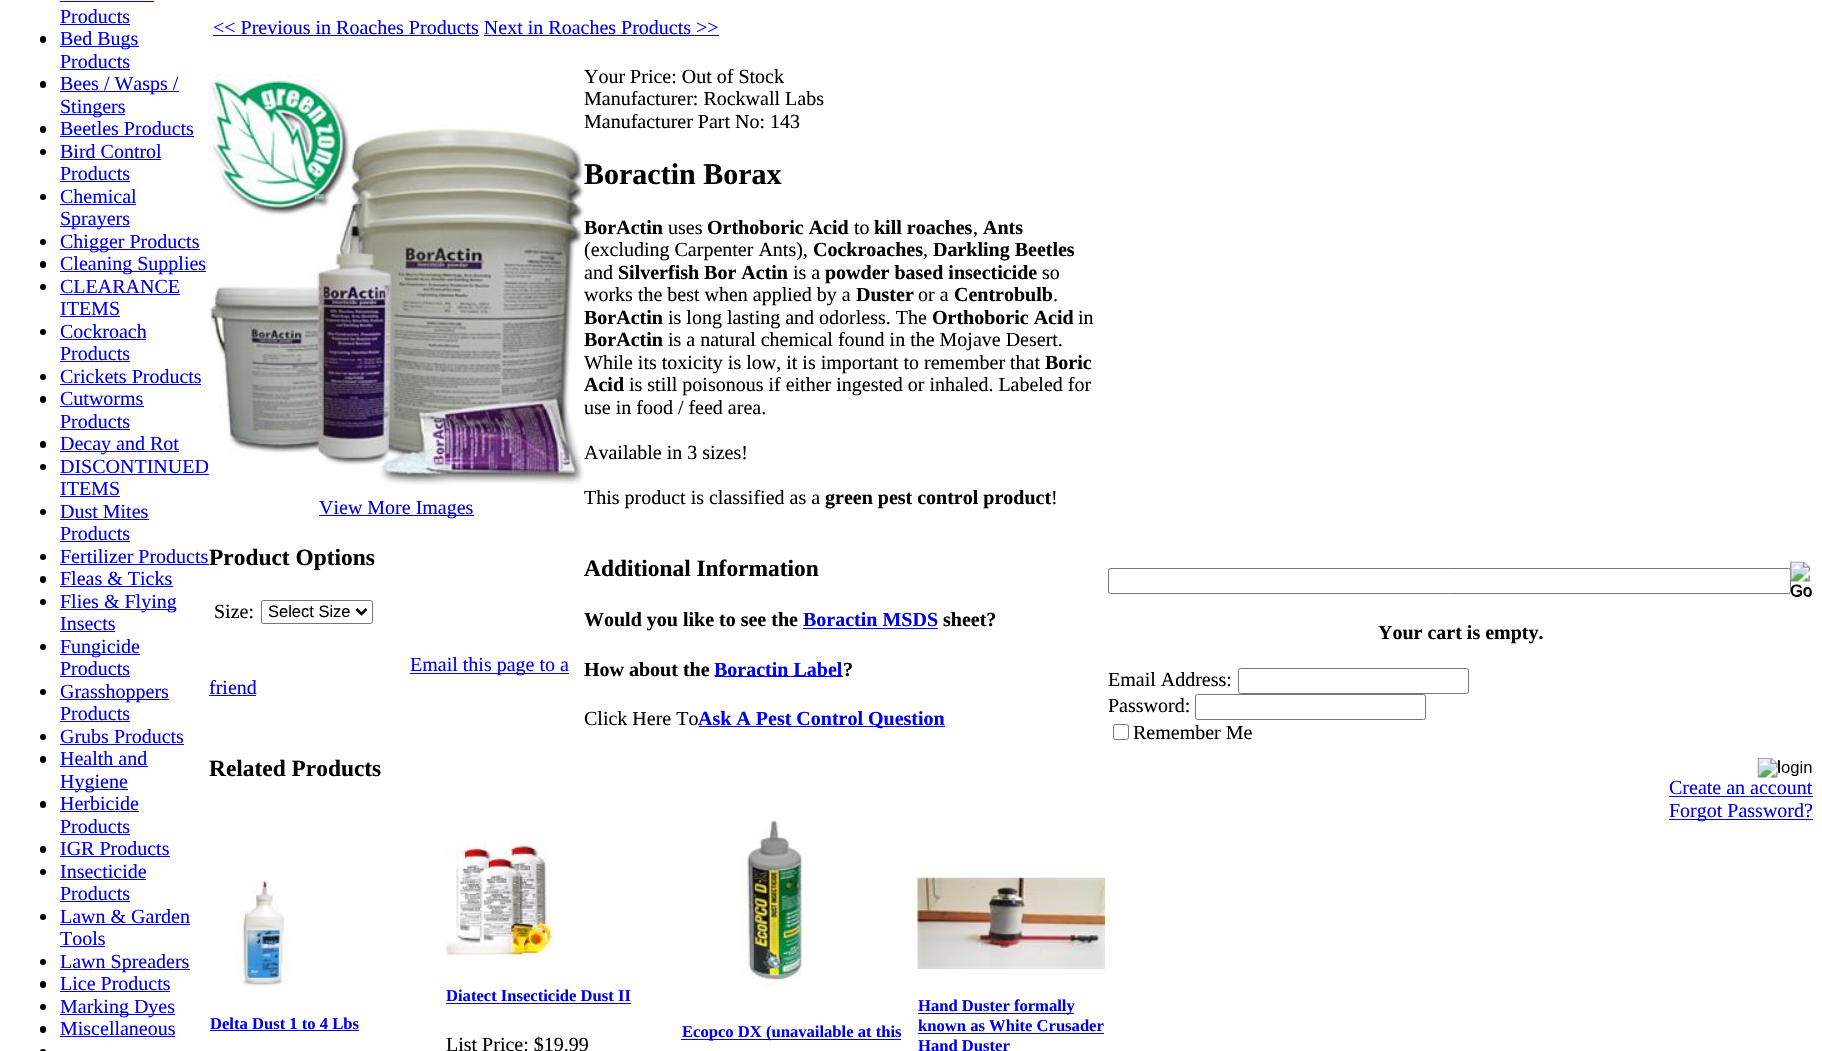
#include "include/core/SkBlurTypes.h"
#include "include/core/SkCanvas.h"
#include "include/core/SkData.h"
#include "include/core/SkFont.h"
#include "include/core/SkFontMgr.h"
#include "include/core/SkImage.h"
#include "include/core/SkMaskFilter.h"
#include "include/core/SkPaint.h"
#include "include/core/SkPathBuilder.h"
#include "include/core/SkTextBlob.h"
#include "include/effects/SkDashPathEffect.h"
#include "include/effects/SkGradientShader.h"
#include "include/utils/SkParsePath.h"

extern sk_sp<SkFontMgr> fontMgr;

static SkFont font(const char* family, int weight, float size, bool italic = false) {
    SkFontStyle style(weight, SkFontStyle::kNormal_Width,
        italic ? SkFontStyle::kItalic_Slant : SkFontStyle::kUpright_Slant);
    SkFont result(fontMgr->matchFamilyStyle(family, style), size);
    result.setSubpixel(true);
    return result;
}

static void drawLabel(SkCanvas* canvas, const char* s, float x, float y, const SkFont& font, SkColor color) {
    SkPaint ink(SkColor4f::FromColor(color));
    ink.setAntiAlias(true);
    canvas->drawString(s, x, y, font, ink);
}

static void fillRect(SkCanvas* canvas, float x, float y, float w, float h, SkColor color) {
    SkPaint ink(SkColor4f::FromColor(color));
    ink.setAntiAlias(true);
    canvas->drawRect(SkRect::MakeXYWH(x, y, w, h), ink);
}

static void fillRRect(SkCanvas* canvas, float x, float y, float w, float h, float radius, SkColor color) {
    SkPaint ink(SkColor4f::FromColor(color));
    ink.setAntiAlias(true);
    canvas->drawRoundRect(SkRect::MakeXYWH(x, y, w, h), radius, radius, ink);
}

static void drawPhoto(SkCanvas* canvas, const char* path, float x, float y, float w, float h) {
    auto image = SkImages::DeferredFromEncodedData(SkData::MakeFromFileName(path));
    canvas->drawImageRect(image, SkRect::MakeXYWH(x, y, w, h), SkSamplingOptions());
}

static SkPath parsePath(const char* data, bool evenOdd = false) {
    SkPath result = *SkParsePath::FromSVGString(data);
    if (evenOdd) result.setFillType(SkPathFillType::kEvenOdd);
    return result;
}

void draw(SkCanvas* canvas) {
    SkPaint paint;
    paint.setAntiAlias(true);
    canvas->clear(0xFFFFFFFF);
    SkFont font1 = font("Liberation Serif", 400, 20);
    drawLabel(canvas, "Products", 60, 23, font1, 0xFF0000EE);
    fillRect(canvas, 60, 1, 94, 1, 0xFF0000EE);
    fillRect(canvas, 60, 24, 70, 1, 0xFF0000EE);
    fillRRect(canvas, 40, 36, 6, 7, 3, 0xFF000000);
    fillRect(canvas, 60, 46, 79, 1, 0xFF0000EE);
    drawLabel(canvas, "Bed Bugs", 60, 45, font1, 0xFF0000EE);
    drawLabel(canvas, "Products", 60, 68, font1, 0xFF0000EE);
    fillRect(canvas, 60, 69, 70, 1, 0xFF0000EE);
    fillRRect(canvas, 40, 81, 6, 7, 3, 0xFF000000);
    fillRect(canvas, 60, 91, 119, 1, 0xFF0000EE);
    drawLabel(canvas, "Bees / Wasps /", 60, 90, font1, 0xFF0000EE);
    fillRect(canvas, 60, 114, 65, 1, 0xFF0000EE);
    drawLabel(canvas, "Stingers", 60, 113, font1, 0xFF0000EE);
    fillRRect(canvas, 40, 126, 6, 7, 3, 0xFF000000);
    drawLabel(canvas, "Beetles Products", 60, 135, font1, 0xFF0000EE);
    fillRect(canvas, 60, 136, 134, 1, 0xFF0000EE);
    paint.setColor(0xFF000000);
    canvas->drawCircle(43, 152, 3, paint);
    drawLabel(canvas, "Bird Control", 60, 158, font1, 0xFF0000EE);
    fillRect(canvas, 60, 159, 101, 1, 0xFF0000EE);
    drawLabel(canvas, "Products", 60, 180, font1, 0xFF0000EE);
    fillRect(canvas, 60, 181, 70, 1, 0xFF0000EE);
    canvas->drawCircle(43, 197, 3, paint);
    drawLabel(canvas, "Chemical", 60, 203, font1, 0xFF0000EE);
    fillRect(canvas, 60, 204, 76, 1, 0xFF0000EE);
    fillRect(canvas, 60, 226, 70, 1, 0xFF0000EE);
    drawLabel(canvas, "Sprayers", 60, 225, font1, 0xFF0000EE);
    canvas->drawCircle(43, 242, 3, paint);
    fillRect(canvas, 60, 249, 140, 1, 0xFF0000EE);
    drawLabel(canvas, "Chigger Products", 60, 248, font1, 0xFF0000EE);
    fillRRect(canvas, 40, 261, 6, 7, 3, 0xFF000000);
    fillRect(canvas, 60, 271, 146, 1, 0xFF0000EE);
    drawLabel(canvas, "Cleaning Supplies", 60, 270, font1, 0xFF0000EE);
    canvas->drawCircle(43, 287, 3, paint);
    drawLabel(canvas, "CLEARANCE", 60, 293, font1, 0xFF0000EE);
    fillRect(canvas, 60, 294, 120, 1, 0xFF0000EE);
    drawLabel(canvas, "ITEMS", 60, 315, font1, 0xFF0000EE);
    fillRect(canvas, 60, 316, 60, 1, 0xFF0000EE);
    canvas->drawCircle(43, 332, 3, paint);
    drawLabel(canvas, "Cockroach", 60, 338, font1, 0xFF0000EE);
    fillRect(canvas, 60, 339, 86, 1, 0xFF0000EE);
    drawLabel(canvas, "Products", 60, 360, font1, 0xFF0000EE);
    fillRect(canvas, 60, 361, 70, 1, 0xFF0000EE);
    canvas->drawCircle(43, 377, 3, paint);
    drawLabel(canvas, "Crickets Products", 60, 383, font1, 0xFF0000EE);
    fillRect(canvas, 60, 384, 141, 1, 0xFF0000EE);
    fillRRect(canvas, 40, 396, 6, 7, 3, 0xFF000000);
    drawLabel(canvas, "Cutworms", 60, 405, font1, 0xFF0000EE);
    fillRect(canvas, 60, 406, 84, 1, 0xFF0000EE);
    drawLabel(canvas, "Products", 60, 428, font1, 0xFF0000EE);
    fillRect(canvas, 60, 429, 70, 1, 0xFF0000EE);
    fillRRect(canvas, 40, 441, 6, 7, 3, 0xFF000000);
    fillRect(canvas, 60, 451, 119, 1, 0xFF0000EE);
    drawLabel(canvas, "Decay and Rot", 60, 450, font1, 0xFF0000EE);
    canvas->drawCircle(43, 467, 3, paint);
    drawLabel(canvas, "DISCONTINUED", 60, 473, font1, 0xFF0000EE);
    fillRect(canvas, 60, 474, 149, 1, 0xFF0000EE);
    drawLabel(canvas, "ITEMS", 60, 495, font1, 0xFF0000EE);
    fillRect(canvas, 60, 496, 60, 1, 0xFF0000EE);
    canvas->drawCircle(43, 512, 3, paint);
    drawLabel(canvas, "Dust Mites", 60, 518, font1, 0xFF0000EE);
    fillRect(canvas, 60, 519, 89, 1, 0xFF0000EE);
    drawLabel(canvas, "Products", 60, 540, font1, 0xFF0000EE);
    fillRect(canvas, 60, 541, 70, 1, 0xFF0000EE);
    canvas->drawCircle(43, 557, 3, paint);
    drawLabel(canvas, "Fertilizer Products", 60, 563, font1, 0xFF0000EE);
    fillRect(canvas, 60, 564, 149, 1, 0xFF0000EE);
    fillRRect(canvas, 40, 576, 6, 7, 3, 0xFF000000);
    drawLabel(canvas, "Fleas & Ticks", 60, 585, font1, 0xFF0000EE);
    fillRect(canvas, 60, 586, 113, 1, 0xFF0000EE);
    canvas->drawCircle(43, 602, 3, paint);
    fillRect(canvas, 60, 609, 116, 1, 0xFF0000EE);
    drawLabel(canvas, "Flies & Flying", 60, 608, font1, 0xFF0000EE);
    drawLabel(canvas, "Insects", 60, 630, font1, 0xFF0000EE);
    fillRect(canvas, 60, 631, 55, 1, 0xFF0000EE);
    canvas->drawCircle(43, 647, 3, paint);
    fillRect(canvas, 60, 654, 80, 1, 0xFF0000EE);
    drawLabel(canvas, "Fungicide", 60, 653, font1, 0xFF0000EE);
    drawLabel(canvas, "Products", 60, 675, font1, 0xFF0000EE);
    fillRect(canvas, 60, 676, 70, 1, 0xFF0000EE);
    canvas->drawCircle(43, 692, 3, paint);
    fillRect(canvas, 60, 699, 109, 1, 0xFF0000EE);
    drawLabel(canvas, "Grasshoppers", 60, 698, font1, 0xFF0000EE);
    drawLabel(canvas, "Products", 60, 720, font1, 0xFF0000EE);
    fillRect(canvas, 60, 721, 70, 1, 0xFF0000EE);
    canvas->drawCircle(43, 737, 3, paint);
    drawLabel(canvas, "Grubs Products", 60, 743, font1, 0xFF0000EE);
    fillRect(canvas, 60, 744, 124, 1, 0xFF0000EE);
    fillRRect(canvas, 40, 756, 6, 7, 3, 0xFF000000);
    drawLabel(canvas, "Health and", 60, 765, font1, 0xFF0000EE);
    fillRect(canvas, 60, 766, 88, 1, 0xFF0000EE);
    fillRect(canvas, 60, 789, 68, 1, 0xFF0000EE);
    drawLabel(canvas, "Hygiene", 60, 788, font1, 0xFF0000EE);
    fillRRect(canvas, 40, 801, 6, 7, 3, 0xFF000000);
    drawLabel(canvas, "Herbicide", 60, 810, font1, 0xFF0000EE);
    fillRect(canvas, 60, 811, 79, 1, 0xFF0000EE);
    drawLabel(canvas, "Products", 60, 833, font1, 0xFF0000EE);
    fillRect(canvas, 60, 834, 70, 1, 0xFF0000EE);
    fillRRect(canvas, 40, 846, 6, 7, 3, 0xFF000000);
    drawLabel(canvas, "IGR Products", 60, 855, font1, 0xFF0000EE);
    fillRect(canvas, 60, 856, 110, 1, 0xFF0000EE);
    canvas->drawCircle(43, 872, 3, paint);
    drawLabel(canvas, "Insecticide", 60, 878, font1, 0xFF0000EE);
    fillRect(canvas, 60, 879, 86, 1, 0xFF0000EE);
    drawLabel(canvas, "Products", 60, 900, font1, 0xFF0000EE);
    fillRect(canvas, 60, 901, 70, 1, 0xFF0000EE);
    canvas->drawCircle(43, 917, 3, paint);
    drawLabel(canvas, "Lawn & Garden", 60, 923, font1, 0xFF0000EE);
    fillRect(canvas, 60, 924, 130, 1, 0xFF0000EE);
    drawLabel(canvas, "Tools", 60, 945, font1, 0xFF0000EE);
    fillRect(canvas, 60, 946, 45, 1, 0xFF0000EE);
    canvas->drawCircle(43, 962, 3, paint);
    fillRect(canvas, 60, 969, 130, 1, 0xFF0000EE);
    drawLabel(canvas, "Lawn Spreaders", 60, 968, font1, 0xFF0000EE);
    fillRRect(canvas, 40, 981, 6, 7, 3, 0xFF000000);
    drawLabel(canvas, "Lice Products", 60, 990, font1, 0xFF0000EE);
    fillRect(canvas, 60, 991, 110, 1, 0xFF0000EE);
    canvas->drawCircle(43, 1007, 3, paint);
    fillRect(canvas, 60, 1014, 115, 1, 0xFF0000EE);
    drawLabel(canvas, "Marking Dyes", 60, 1013, font1, 0xFF0000EE);
    fillRRect(canvas, 40, 1026, 6, 7, 3, 0xFF000000);
    drawLabel(canvas, "Miscellaneous", 60, 1035, font1, 0xFF0000EE);
    fillRect(canvas, 60, 1036, 115, 1, 0xFF0000EE);
    fillRRect(canvas, 40, 1049, 6, 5, 3, 0xFF000000);
    drawLabel(canvas, "<< Previous in Roaches Products Next in Roaches Products >>", 213, 34, font1, 0xFF0000EE);
    fillRect(canvas, 213, 35, 266, 1, 0xFF0000EE);
    fillRect(canvas, 484, 35, 235, 1, 0xFF0000EE);
    drawPhoto(canvas, "assets/img1.png", 208, 74, 376, 411);
    fillRect(canvas, 319, 515, 155, 1, 0xFF0000EE);
    drawLabel(canvas, "View More Images", 319, 514, font1, 0xFF0000EE);
    SkFont font2 = font("Liberation Serif", 700, 23.4f);
    drawLabel(canvas, "Product Options", 209, 565, font2, 0xFF000000);
    drawLabel(canvas, "Size:", 214, 618, font1, 0xFF000000);
    paint.setStroke(true);
    paint.setStrokeWidth(1);
    paint.setColor(0xFF767676);
    canvas->drawRoundRect(SkRect::MakeXYWH(261.5f, 600.5f, 111, 23), 2, 2, paint);
    paint.setStrokeWidth(2.5f);
    paint.setColor(0xFF000000);
    canvas->drawPath(parsePath("M356.5 609L361.5 614L366.5 609"), paint);
    SkFont font3 = font("Liberation Sans", 400, 16.5f);
    drawLabel(canvas, "Select Size", 268, 617, font3, 0xFF000000);
    fillRect(canvas, 410, 673, 159, 1, 0xFF0000EE);
    drawLabel(canvas, "Email this page to a", 410, 671, font1, 0xFF0000EE);
    drawLabel(canvas, "friend", 209, 694, font1, 0xFF0000EE);
    fillRect(canvas, 209, 695, 47, 1, 0xFF0000EE);
    drawLabel(canvas, "Your Price: Out of Stock", 584, 83, font1, 0xFF000000);
    drawLabel(canvas, "Manufacturer: Rockwall Labs", 584, 105, font1, 0xFF000000);
    drawLabel(canvas, "Manufacturer Part No: 143", 584, 128, font1, 0xFF000000);
    SkFont font4 = font("Liberation Serif", 700, 30);
    drawLabel(canvas, "Boractin Borax", 584, 184, font4, 0xFF000000);
    SkFont font5 = font("Liberation Serif", 700, 20);
    drawLabel(canvas, "BorActin", 584, 234, font5, 0xFF000000);
    drawLabel(canvas, "uses", 668, 234, font1, 0xFF000000);
    drawLabel(canvas, "Orthoboric Acid", 707, 234, font5, 0xFF000000);
    drawLabel(canvas, "to", 854, 234, font1, 0xFF000000);
    drawLabel(canvas, "kill roaches", 874, 234, font5, 0xFF000000);
    drawLabel(canvas, ",", 973, 234, font1, 0xFF000000);
    drawLabel(canvas, "Ants", 983, 234, font5, 0xFF000000);
    drawLabel(canvas, "(excluding Carpenter Ants),", 584, 256, font1, 0xFF000000);
    drawLabel(canvas, "Cockroaches", 813, 256, font5, 0xFF000000);
    drawLabel(canvas, ",", 923, 256, font1, 0xFF000000);
    drawLabel(canvas, "Darkling Beetles", 933, 256, font5, 0xFF000000);
    drawLabel(canvas, "and", 584, 279, font1, 0xFF000000);
    drawLabel(canvas, "Silverfish Bor Actin", 618, 279, font5, 0xFF000000);
    drawLabel(canvas, "is a", 793, 279, font1, 0xFF000000);
    drawLabel(canvas, "powder based insecticide", 825, 279, font5, 0xFF000000);
    drawLabel(canvas, "so", 1042, 279, font1, 0xFF000000);
    drawLabel(canvas, "works the best when applied by a", 584, 301, font1, 0xFF000000);
    drawLabel(canvas, "Duster", 856, 301, font5, 0xFF000000);
    drawLabel(canvas, "or a", 918, 301, font1, 0xFF000000);
    drawLabel(canvas, "Centrobulb", 954, 301, font5, 0xFF000000);
    drawLabel(canvas, ".", 1053, 301, font1, 0xFF000000);
    drawLabel(canvas, "BorActin", 584, 324, font5, 0xFF000000);
    drawLabel(canvas, "is long lasting and odorless. The", 668, 324, font1, 0xFF000000);
    drawLabel(canvas, "Orthoboric Acid", 932, 324, font5, 0xFF000000);
    drawLabel(canvas, "in", 1078, 324, font1, 0xFF000000);
    drawLabel(canvas, "BorActin", 584, 346, font5, 0xFF000000);
    drawLabel(canvas, "is a natural chemical found in the Mojave Desert.", 668, 346, font1, 0xFF000000);
    drawLabel(canvas, "While its toxicity is low, it is important to remember that", 584, 369, font1, 0xFF000000);
    drawLabel(canvas, "Boric", 1045, 369, font5, 0xFF000000);
    drawLabel(canvas, "Acid", 584, 391, font5, 0xFF000000);
    drawLabel(canvas, "is still poisonous if either ingested or inhaled. Labeled for", 629, 391, font1, 0xFF000000);
    drawLabel(canvas, "use in food / feed area.", 584, 414, font1, 0xFF000000);
    drawLabel(canvas, "Available in 3 sizes!", 584, 459, font1, 0xFF000000);
    drawLabel(canvas, "This product is classified as a", 584, 504, font1, 0xFF000000);
    drawLabel(canvas, "green pest control product", 825, 504, font5, 0xFF000000);
    drawLabel(canvas, "!", 1051, 504, font1, 0xFF000000);
    drawLabel(canvas, "Additional Information", 584, 576, font2, 0xFF000000);
    drawLabel(canvas, "Would you like to see the", 584, 626, font5, 0xFF000000);
    drawLabel(canvas, "Boractin MSDS", 803, 626, font5, 0xFF0000EE);
    fillRect(canvas, 803, 628, 135, 1, 0xFF0000EE);
    drawLabel(canvas, "sheet?", 943, 626, font5, 0xFF000000);
    drawLabel(canvas, "How about the", 584, 676, font5, 0xFF000000);
    fillRect(canvas, 715, 676, 128, 1, 0xFF0000EE);
    drawLabel(canvas, "Boractin Label", 714, 676, font5, 0xFF0000EE);
    drawLabel(canvas, "?", 843, 676, font5, 0xFF000000);
    drawLabel(canvas, "Click Here To", 584, 725, font1, 0xFF000000);
    fillRect(canvas, 699, 726, 246, 1, 0xFF0000EE);
    drawLabel(canvas, "Ask A Pest Control Question", 698, 725, font5, 0xFF0000EE);
    drawLabel(canvas, "Related Products", 209, 776, font2, 0xFF000000);
    drawPhoto(canvas, "assets/img2.png", 235, 880, 56, 107);
    SkFont font6 = font("Liberation Serif", 700, 16.6f);
    drawLabel(canvas, "Delta Dust 1 to 4 Lbs", 210, 1029, font6, 0xFF0000EE);
    fillRect(canvas, 210, 1030, 149, 1, 0xFF0000EE);
    drawPhoto(canvas, "assets/img3.png", 446, 840, 107, 118);
    drawLabel(canvas, "Diatect Insecticide Dust II", 446, 1001, font6, 0xFF0000EE);
    fillRect(canvas, 446, 1003, 185, 1, 0xFF0000EE);
    drawLabel(canvas, "List Price: $19.99", 446, 1051, font1, 0xFF000000);
    drawPhoto(canvas, "assets/img4.png", 917, 877, 188, 92);
    fillRect(canvas, 918, 1013, 156, 1, 0xFF0000EE);
    drawLabel(canvas, "Hand Duster formally", 918, 1011, font6, 0xFF0000EE);
    drawLabel(canvas, "known as White Crusader", 918, 1031, font6, 0xFF0000EE);
    fillRect(canvas, 918, 1033, 186, 1, 0xFF0000EE);
    drawLabel(canvas, "Hand Duster", 918, 1051, font6, 0xFF0000EE);
    drawPhoto(canvas, "assets/img5.png", 740, 817, 63, 171);
    fillRect(canvas, 681, 1039, 220, 1, 0xFF0000EE);
    drawLabel(canvas, "Ecopco DX (unavailable at this", 682, 1037, font6, 0xFF0000EE);
    paint.setStrokeWidth(1);
    paint.setColor(0xFF767676);
    canvas->drawRoundRect(SkRect::MakeXYWH(1108.5f, 568.5f, 682, 25), 2, 2, paint);
    drawPhoto(canvas, "assets/img6.png", 1790, 561, 22, 36);
    drawLabel(canvas, "Go", 1790, 596, font3, 0xFF000000);
    drawLabel(canvas, "Your cart is empty.", 1378, 639, font5, 0xFF000000);
    drawLabel(canvas, "Email Address:", 1108, 686, font1, 0xFF000000);
    canvas->drawRoundRect(SkRect::MakeXYWH(1238.5f, 668.5f, 230, 25), 2, 2, paint);
    drawLabel(canvas, "Password:", 1108, 712, font1, 0xFF000000);
    canvas->drawRoundRect(SkRect::MakeXYWH(1195.5f, 694.5f, 230, 25), 2, 2, paint);
    canvas->drawRoundRect(SkRect::MakeXYWH(1113.5f, 724.5f, 15, 15), 2, 2, paint);
    drawLabel(canvas, "Remember Me", 1133, 739, font1, 0xFF000000);
    drawPhoto(canvas, "assets/img7.png", 1757, 757, 55, 21);
    drawLabel(canvas, "l", 1777, 772, font3, 0xFF000000);
    drawLabel(canvas, "Create an account", 1669, 794, font1, 0xFF0000EE);
    fillRect(canvas, 1669, 796, 144, 1, 0xFF0000EE);
    fillRect(canvas, 1669, 819, 144, 1, 0xFF0000EE);
    drawLabel(canvas, "Forgot Password?", 1669, 817, font1, 0xFF0000EE);
}
